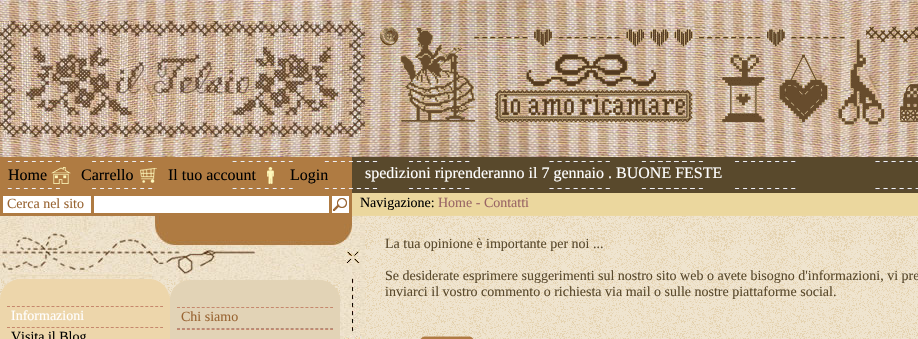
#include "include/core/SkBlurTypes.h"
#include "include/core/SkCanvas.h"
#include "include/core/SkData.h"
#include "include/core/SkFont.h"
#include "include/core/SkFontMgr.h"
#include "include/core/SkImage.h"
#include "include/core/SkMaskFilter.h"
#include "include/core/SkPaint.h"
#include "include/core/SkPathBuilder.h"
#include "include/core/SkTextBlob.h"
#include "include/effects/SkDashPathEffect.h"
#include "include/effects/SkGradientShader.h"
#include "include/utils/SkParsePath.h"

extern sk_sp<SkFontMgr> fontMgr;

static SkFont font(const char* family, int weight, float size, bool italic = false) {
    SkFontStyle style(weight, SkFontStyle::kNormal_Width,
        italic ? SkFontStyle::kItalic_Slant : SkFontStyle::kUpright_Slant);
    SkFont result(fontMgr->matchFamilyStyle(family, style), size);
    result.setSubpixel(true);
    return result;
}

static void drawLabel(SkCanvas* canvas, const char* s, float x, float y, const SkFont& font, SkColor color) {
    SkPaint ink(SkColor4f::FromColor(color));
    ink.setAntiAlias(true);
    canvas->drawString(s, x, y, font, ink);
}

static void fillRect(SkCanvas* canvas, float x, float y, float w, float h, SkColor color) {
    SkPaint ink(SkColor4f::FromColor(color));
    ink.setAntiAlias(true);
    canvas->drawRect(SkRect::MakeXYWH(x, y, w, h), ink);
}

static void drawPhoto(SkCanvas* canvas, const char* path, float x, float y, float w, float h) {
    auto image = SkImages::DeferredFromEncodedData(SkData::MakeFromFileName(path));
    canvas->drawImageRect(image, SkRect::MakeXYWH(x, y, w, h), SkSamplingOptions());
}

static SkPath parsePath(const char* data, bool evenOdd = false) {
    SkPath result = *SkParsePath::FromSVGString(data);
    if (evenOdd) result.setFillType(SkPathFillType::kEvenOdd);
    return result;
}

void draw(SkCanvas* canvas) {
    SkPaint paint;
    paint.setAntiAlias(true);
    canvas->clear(0xFFFFFFFF);
    drawPhoto(canvas, "assets/img1.png", 365, 216, 553, 123);
    drawPhoto(canvas, "assets/img2.png", 0, 0, 918, 157);
    drawPhoto(canvas, "assets/img3.png", 0, 21, 365, 116);
    drawPhoto(canvas, "assets/img4.png", 380, 27, 538, 98);
    drawPhoto(canvas, "assets/img5.png", 0, 157, 918, 59);
    drawPhoto(canvas, "assets/img6.png", 51, 167, 20, 17);
    SkFont font1 = font("Liberation Serif", 400, 16);
    drawLabel(canvas, "Home", 8, 180, font1, 0xFF000000);
    drawPhoto(canvas, "assets/img7.png", 140, 168, 17, 15);
    drawLabel(canvas, "Carrello", 81, 180, font1, 0xFF000000);
    drawPhoto(canvas, "assets/img8.png", 267, 167, 7, 17);
    drawLabel(canvas, "Il tuo account", 168, 180, font1, 0xFF000000);
    drawLabel(canvas, "Login", 290, 180, font1, 0xFF000000);
    drawLabel(canvas, "spedizioni riprenderanno il 7 gennaio . BUONE FESTE", 365, 178, font1, 0xFFFFFFFF);
    fillRect(canvas, 3, 196, 88, 17, 0xFFFFFFFF);
    SkFont font2 = font("Liberation Serif", 400, 14);
    drawLabel(canvas, "Cerca nel sito", 7, 208, font2, 0xFF996533);
    fillRect(canvas, 94, 196, 235, 17, 0xFFFFFFFF);
    drawPhoto(canvas, "assets/img9.png", 332, 196, 17, 17);
    drawLabel(canvas, "Navigazione:", 360, 207, font2, 0xFF000000);
    drawLabel(canvas, "Home - Contatti", 438, 207, font2, 0xFF996565);
    drawLabel(canvas, "La tua opinione è importante per noi ...", 385, 248, font2, 0xFF59492C);
    drawLabel(canvas, "Se desiderate esprimere suggerimenti sul nostro sito web o avete bisogno d'informazioni, vi pre", 385, 280, font2, 0xFF59492C);
    drawLabel(canvas, "inviarci il vostro commento o richiesta via mail o sulle nostre piattaforme social.", 385, 296, font2, 0xFF59492C);
    drawPhoto(canvas, "assets/img10.png", 420, 336, 54, 3);
    drawPhoto(canvas, "assets/img11.png", 0, 216, 365, 123);
    fillRect(canvas, 0, 299, 170, 40, 0xFFEDD6AB);
    drawPhoto(canvas, "assets/img12.png", 0, 279, 170, 20);
    paint.setStroke(true);
    paint.setStrokeWidth(1);
    paint.setColor(0xFFC6876C);
    paint.setPathEffect(SkDashPathEffect::Make({{3, 1.94f}}, 0));
    canvas->drawPath(parsePath("M7 306.5H163"), paint);
    paint.setPathEffect(nullptr);
    paint.setPathEffect(SkDashPathEffect::Make({{3, 1.94f}}, 0));
    canvas->drawPath(parsePath("M7 327.5H163"), paint);
    paint.setPathEffect(nullptr);
    drawLabel(canvas, "Informazioni", 11, 320, font2, 0xFFFFFFFF);
    fillRect(canvas, 170, 297, 170, 42, 0xFFE2D3B6);
    drawPhoto(canvas, "assets/img13.png", 170, 280, 170, 17);
    paint.setPathEffect(SkDashPathEffect::Make({{3, 1.94f}}, 0));
    canvas->drawPath(parsePath("M177 307.5H333"), paint);
    paint.setPathEffect(nullptr);
    paint.setColor(0xFFB48D7B);
    paint.setPathEffect(SkDashPathEffect::Make({{3, 1.94f}}, 0));
    canvas->drawPath(parsePath("M177 328.5H333"), paint);
    paint.setPathEffect(nullptr);
    drawLabel(canvas, "Chi siamo", 181, 321, font2, 0xFF996533);
    paint.setColor(0xFFC6876C);
    paint.setPathEffect(SkDashPathEffect::Make({{3, 1.94f}}, 0));
    canvas->drawPath(parsePath("M177 329.5H333"), paint);
    paint.setPathEffect(nullptr);
    drawLabel(canvas, "Visita il Blog", 11, 341, font2, 0xFF000000);
}
